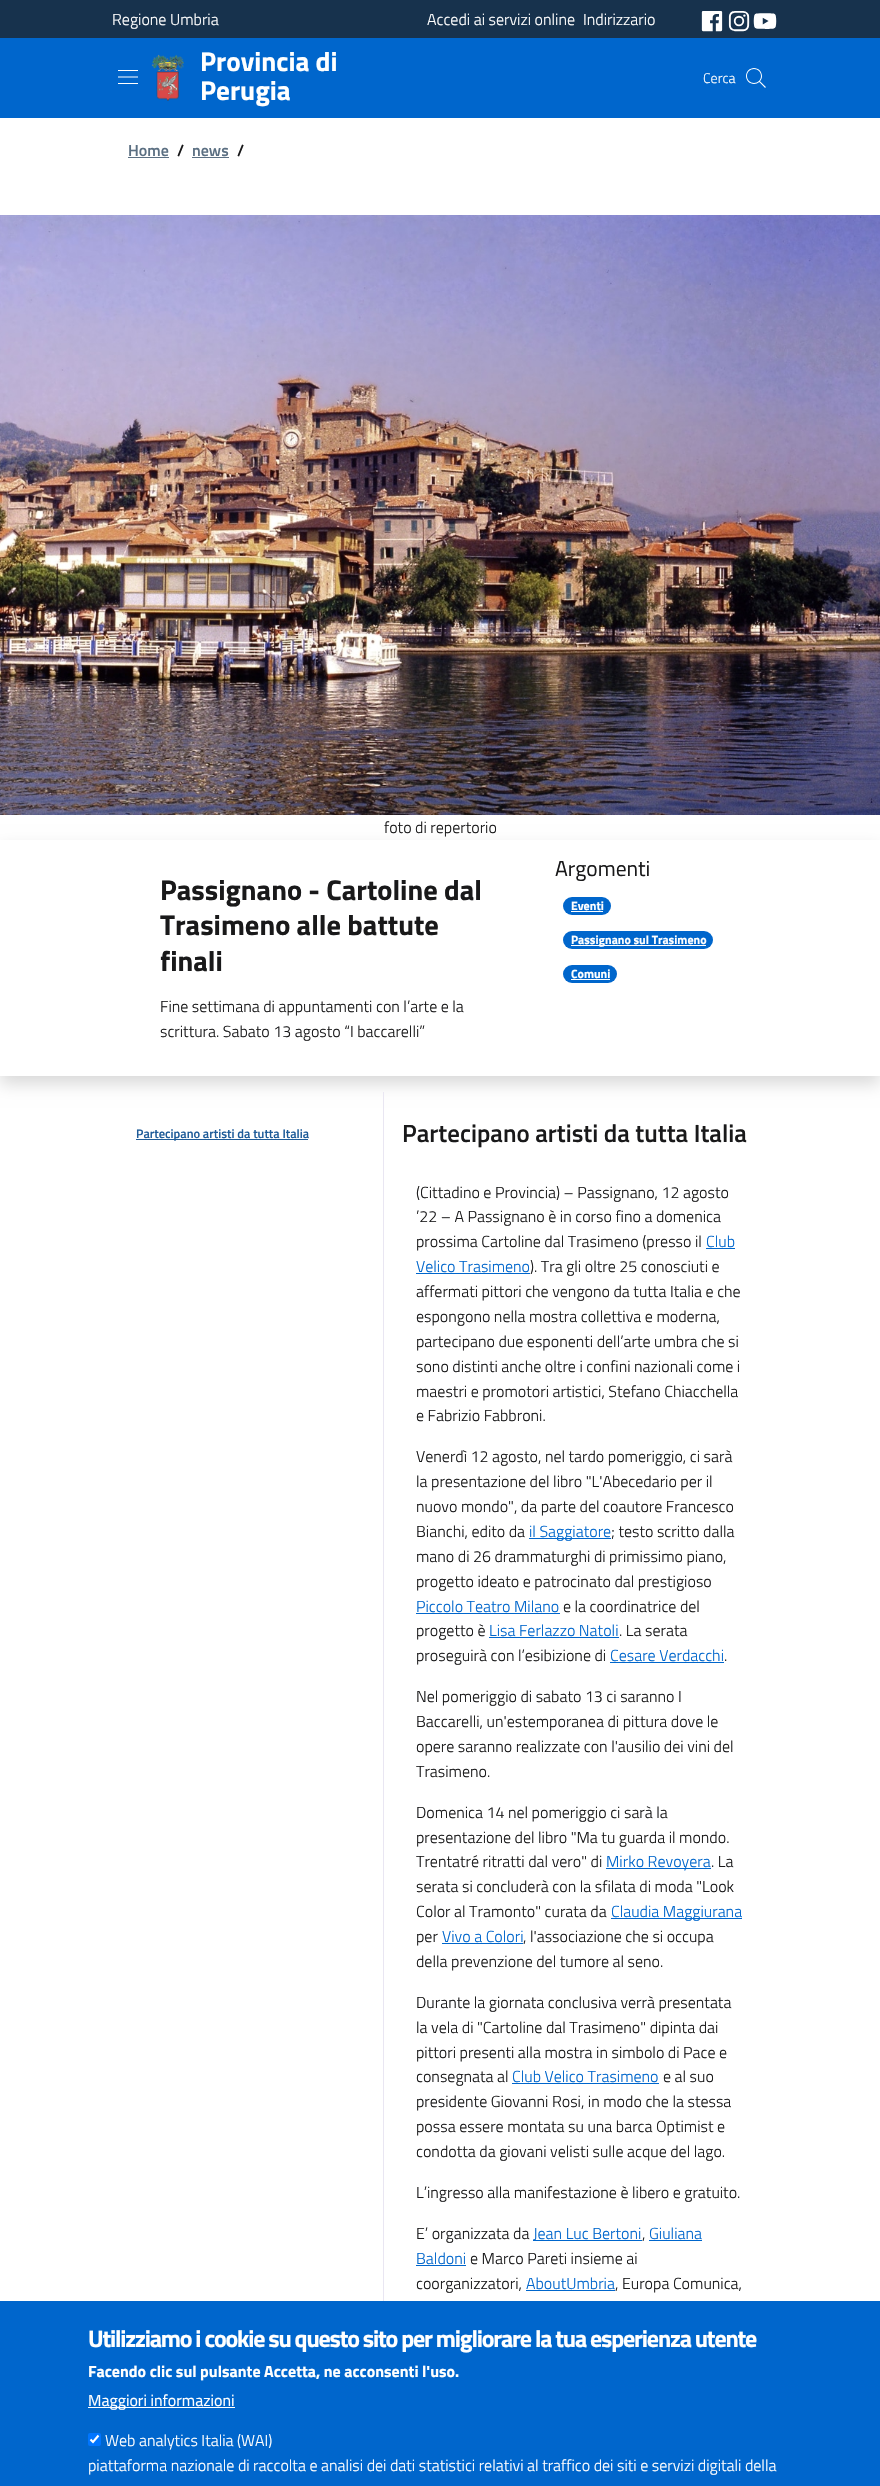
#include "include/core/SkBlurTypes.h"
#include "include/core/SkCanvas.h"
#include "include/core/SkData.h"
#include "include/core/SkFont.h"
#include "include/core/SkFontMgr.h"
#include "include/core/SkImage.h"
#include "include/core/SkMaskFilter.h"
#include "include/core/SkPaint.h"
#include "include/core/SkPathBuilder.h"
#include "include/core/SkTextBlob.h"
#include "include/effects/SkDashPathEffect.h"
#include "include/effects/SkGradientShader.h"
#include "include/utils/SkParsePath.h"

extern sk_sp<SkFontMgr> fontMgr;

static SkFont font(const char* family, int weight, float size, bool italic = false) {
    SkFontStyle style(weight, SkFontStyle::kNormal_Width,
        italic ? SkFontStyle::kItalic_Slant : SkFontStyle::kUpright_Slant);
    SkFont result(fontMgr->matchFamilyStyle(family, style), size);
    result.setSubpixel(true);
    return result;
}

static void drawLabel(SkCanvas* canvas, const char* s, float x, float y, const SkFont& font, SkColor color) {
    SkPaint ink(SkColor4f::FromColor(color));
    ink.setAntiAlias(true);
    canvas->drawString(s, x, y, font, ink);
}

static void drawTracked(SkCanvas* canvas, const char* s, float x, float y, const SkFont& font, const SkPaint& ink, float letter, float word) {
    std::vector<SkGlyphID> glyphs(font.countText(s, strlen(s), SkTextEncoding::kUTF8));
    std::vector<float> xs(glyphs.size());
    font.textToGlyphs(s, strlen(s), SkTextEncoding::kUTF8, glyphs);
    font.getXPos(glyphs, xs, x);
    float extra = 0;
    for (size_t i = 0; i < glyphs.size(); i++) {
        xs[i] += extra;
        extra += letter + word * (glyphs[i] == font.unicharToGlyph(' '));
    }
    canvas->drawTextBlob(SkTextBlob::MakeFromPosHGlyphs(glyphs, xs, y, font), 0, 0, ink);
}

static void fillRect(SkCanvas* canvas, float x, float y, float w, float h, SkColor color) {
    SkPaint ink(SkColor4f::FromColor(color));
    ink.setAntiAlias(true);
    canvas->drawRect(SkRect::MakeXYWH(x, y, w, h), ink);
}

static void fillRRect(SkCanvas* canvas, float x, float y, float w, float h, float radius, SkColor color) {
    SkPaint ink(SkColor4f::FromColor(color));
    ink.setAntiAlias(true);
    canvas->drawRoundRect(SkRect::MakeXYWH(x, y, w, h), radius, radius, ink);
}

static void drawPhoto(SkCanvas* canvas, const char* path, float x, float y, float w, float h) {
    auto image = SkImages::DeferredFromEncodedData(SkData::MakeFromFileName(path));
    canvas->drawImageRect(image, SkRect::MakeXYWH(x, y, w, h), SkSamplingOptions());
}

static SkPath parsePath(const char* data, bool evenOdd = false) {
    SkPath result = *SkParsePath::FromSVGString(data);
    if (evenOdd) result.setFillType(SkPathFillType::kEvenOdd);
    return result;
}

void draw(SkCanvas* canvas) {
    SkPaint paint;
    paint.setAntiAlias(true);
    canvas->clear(0xFFFFFFFF);
    fillRect(canvas, 0, 0, 880, 38, 0xFF17324D);
    SkFont font1 = font("Titillium Web", 300, 16);
    drawLabel(canvas, "Regione Umbria", 112, 25, font1, 0xFFFFFFFF);
    drawLabel(canvas, "Accedi ai servizi online", 427, 25, font1, 0xFFFFFFFF);
    drawLabel(canvas, "Indirizzario", 583, 25, font1, 0xFFFFFFFF);
    drawPhoto(canvas, "assets/img1.png", 701, 11, 22, 21);
    drawPhoto(canvas, "assets/img2.png", 728, 11, 22, 21);
    drawPhoto(canvas, "assets/img3.png", 753, 13, 24, 16);
    fillRect(canvas, 0, 38, 880, 80, 0xFF0066CC);
    drawPhoto(canvas, "assets/img4.png", 118, 70, 20, 14);
    drawPhoto(canvas, "assets/img5.png", 151, 54, 34, 47);
    SkFont font2 = font("Titillium Web", 700, 27.25f);
    drawLabel(canvas, "Provincia di", 200, 71, font2, 0xFFFFFFFF);
    drawLabel(canvas, "Perugia", 200, 100, font2, 0xFFFFFFFF);
    SkFont font3 = font("Titillium Web", 300, 14);
    drawLabel(canvas, "Cerca", 703, 83, font3, 0xFFFFFFFF);
    drawPhoto(canvas, "assets/img6.png", 746, 68, 20, 20);
    SkFont font4 = font("Titillium Web", 600, 16);
    drawLabel(canvas, "Home", 128, 156, font4, 0xFF5B6F82);
    fillRect(canvas, 128, 157, 41, 1, 0xFF5B6F82);
    drawLabel(canvas, "/", 177, 156, font4, 0xFF19191A);
    drawLabel(canvas, "news", 192, 156, font4, 0xFF5B6F82);
    fillRect(canvas, 192, 157, 37, 1, 0xFF5B6F82);
    drawLabel(canvas, "/", 237, 156, font4, 0xFF19191A);
    drawPhoto(canvas, "assets/img7.png", 0, 215, 880, 600);
    canvas->save();
    canvas->clipPath(parsePath("M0 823H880V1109H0ZM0 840H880V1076H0Z", true), true);
    paint.setColor(0x26000000);
    paint.setMaskFilter(SkMaskFilter::MakeBlur(kNormal_SkBlurStyle, 8));
    canvas->drawRect(SkRect::MakeXYWH(0, 848, 880, 236), paint);
    paint.setMaskFilter(nullptr);
    canvas->restore();
    drawLabel(canvas, "foto di repertorio", 384, 833, font1, 0xFF19191A);
    SkFont font5 = font("Titillium Web", 700, 28.5f);
    drawLabel(canvas, "Passignano - Cartoline dal", 160, 900, font5, 0xFF19191A);
    drawLabel(canvas, "Trasimeno alle battute", 160, 935, font5, 0xFF19191A);
    drawLabel(canvas, "finali", 160, 971, font5, 0xFF19191A);
    drawLabel(canvas, "Fine settimana di appuntamenti con l’arte e la", 160, 1012, font1, 0xFF19191A);
    drawLabel(canvas, "scrittura. Sabato 13 agosto “I baccarelli”", 160, 1037, font1, 0xFF19191A);
    SkFont font6 = font("Titillium Web", 400, 21.5f);
    drawLabel(canvas, "Argomenti", 555, 876, font6, 0xFF19191A);
    fillRRect(canvas, 563, 897, 48, 18, 9, 0xFF0066CC);
    SkFont font7 = font("Titillium Web", 700, 12);
    drawLabel(canvas, "Eventi", 571, 910, font7, 0xFFFFFFFF);
    fillRect(canvas, 571, 911, 32, 1, 0xFFFFFFFF);
    fillRRect(canvas, 563, 931, 150, 18, 9, 0xFF0066CC);
    fillRect(canvas, 571, 945, 135, 1, 0xFFFFFFFF);
    drawLabel(canvas, "Passignano sul Trasimeno", 571, 944, font7, 0xFFFFFFFF);
    fillRRect(canvas, 563, 965, 54, 18, 9, 0xFF0066CC);
    drawLabel(canvas, "Comuni", 571, 978, font7, 0xFFFFFFFF);
    fillRect(canvas, 571, 979, 39, 1, 0xFFFFFFFF);
    fillRect(canvas, 383, 1092, 1, 1209, 0xFFE9E6F2);
    fillRect(canvas, 136, 1139, 172, 1, 0xFF1F5C99);
    SkFont font8 = font("Titillium Web", 600, 12.5f);
    drawLabel(canvas, "Partecipano artisti da tutta Italia", 136, 1138, font8, 0xFF1F5C99);
    SkFont font9 = font("Titillium Web", 600, 24.9f);
    drawLabel(canvas, "Partecipano artisti da tutta Italia", 402, 1142, font9, 0xFF19191A);
    drawLabel(canvas, "(Cittadino e Provincia) – Passignano, 12 agosto", 416, 1198, font1, 0xFF19191A);
    drawLabel(canvas, "’22 – A Passignano è in corso fino a domenica", 416, 1222, font1, 0xFF19191A);
    drawLabel(canvas, "prossima Cartoline dal Trasimeno (presso il", 416, 1247, font1, 0xFF19191A);
    drawLabel(canvas, "Club", 706, 1247, font1, 0xFF0066CC);
    fillRect(canvas, 706, 1248, 29, 1, 0xFF0066CC);
    drawLabel(canvas, "Velico Trasimeno", 416, 1272, font1, 0xFF0066CC);
    drawLabel(canvas, "). Tra gli oltre 25 conosciuti e", 530, 1272, font1, 0xFF19191A);
    fillRect(canvas, 416, 1273, 114, 1, 0xFF0066CC);
    drawLabel(canvas, "affermati pittori che vengono da tutta Italia e che", 416, 1297, font1, 0xFF19191A);
    drawLabel(canvas, "espongono nella mostra collettiva e moderna,", 416, 1322, font1, 0xFF19191A);
    drawLabel(canvas, "partecipano due esponenti dell’arte umbra che si", 416, 1347, font1, 0xFF19191A);
    drawLabel(canvas, "sono distinti anche oltre i confini nazionali come i", 416, 1372, font1, 0xFF19191A);
    drawLabel(canvas, "maestri e promotori artistici, Stefano Chiacchella", 416, 1397, font1, 0xFF19191A);
    drawLabel(canvas, "e Fabrizio Fabbroni.", 416, 1421, font1, 0xFF19191A);
    drawLabel(canvas, "Venerdì 12 agosto, nel tardo pomeriggio, ci sarà", 416, 1462, font1, 0xFF19191A);
    drawLabel(canvas, "la presentazione del libro \"L'Abecedario per il", 416, 1487, font1, 0xFF19191A);
    drawLabel(canvas, "nuovo mondo\", da parte del coautore Francesco", 416, 1512, font1, 0xFF19191A);
    drawLabel(canvas, "Bianchi, edito da", 416, 1537, font1, 0xFF19191A);
    fillRect(canvas, 529, 1538, 82, 1, 0xFF0066CC);
    drawLabel(canvas, "il Saggiatore", 529, 1537, font1, 0xFF0066CC);
    drawLabel(canvas, "; testo scritto dalla", 611, 1537, font1, 0xFF19191A);
    drawLabel(canvas, "mano di 26 drammaturghi di primissimo piano,", 416, 1562, font1, 0xFF19191A);
    drawLabel(canvas, "progetto ideato e patrocinato dal prestigioso", 416, 1587, font1, 0xFF19191A);
    drawLabel(canvas, "Piccolo Teatro Milano", 416, 1612, font1, 0xFF0066CC);
    fillRect(canvas, 416, 1613, 144, 1, 0xFF0066CC);
    drawLabel(canvas, "e la coordinatrice del", 563, 1612, font1, 0xFF19191A);
    drawLabel(canvas, "progetto è", 416, 1636, font1, 0xFF19191A);
    fillRect(canvas, 489, 1637, 130, 1, 0xFF0066CC);
    drawLabel(canvas, "Lisa Ferlazzo Natoli", 489, 1636, font1, 0xFF0066CC);
    drawLabel(canvas, ". La serata", 619, 1636, font1, 0xFF19191A);
    drawLabel(canvas, "proseguirà con l’esibizione di", 416, 1661, font1, 0xFF19191A);
    drawLabel(canvas, "Cesare Verdacchi", 610, 1661, font1, 0xFF0066CC);
    drawLabel(canvas, ".", 724, 1661, font1, 0xFF19191A);
    fillRect(canvas, 610, 1662, 114, 1, 0xFF0066CC);
    drawLabel(canvas, "Nel pomeriggio di sabato 13 ci saranno I", 416, 1702, font1, 0xFF19191A);
    drawLabel(canvas, "Baccarelli, un'estemporanea di pittura dove le", 416, 1727, font1, 0xFF19191A);
    drawLabel(canvas, "opere saranno realizzate con l'ausilio dei vini del", 416, 1752, font1, 0xFF19191A);
    drawLabel(canvas, "Trasimeno.", 416, 1777, font1, 0xFF19191A);
    drawLabel(canvas, "Domenica 14 nel pomeriggio ci sarà la", 416, 1818, font1, 0xFF19191A);
    drawLabel(canvas, "presentazione del libro \"Ma tu guarda il mondo.", 416, 1843, font1, 0xFF19191A);
    drawLabel(canvas, "Trentatré ritratti dal vero\" di", 416, 1867, font1, 0xFF19191A);
    fillRect(canvas, 606, 1868, 105, 1, 0xFF0066CC);
    drawLabel(canvas, "Mirko Revoyera", 606, 1867, font1, 0xFF0066CC);
    drawLabel(canvas, ". La", 711, 1867, font1, 0xFF19191A);
    drawLabel(canvas, "serata si concluderà con la sfilata di moda \"Look", 416, 1892, font1, 0xFF19191A);
    drawLabel(canvas, "Color al Tramonto\" curata da", 416, 1917, font1, 0xFF19191A);
    fillRect(canvas, 611, 1918, 131, 1, 0xFF0066CC);
    drawLabel(canvas, "Claudia Maggiurana", 611, 1917, font1, 0xFF0066CC);
    drawLabel(canvas, "per", 416, 1942, font1, 0xFF19191A);
    drawLabel(canvas, "Vivo a Colori", 442, 1942, font1, 0xFF0066CC);
    drawLabel(canvas, ", l'associazione che si occupa", 523, 1942, font1, 0xFF19191A);
    fillRect(canvas, 442, 1943, 81, 1, 0xFF0066CC);
    drawLabel(canvas, "della prevenzione del tumore al seno.", 416, 1967, font1, 0xFF19191A);
    drawLabel(canvas, "Durante la giornata conclusiva verrà presentata", 416, 2008, font1, 0xFF19191A);
    drawLabel(canvas, "la vela di \"Cartoline dal Trasimeno\" dipinta dai", 416, 2033, font1, 0xFF19191A);
    drawLabel(canvas, "pittori presenti alla mostra in simbolo di Pace e", 416, 2058, font1, 0xFF19191A);
    drawLabel(canvas, "consegnata al", 416, 2082, font1, 0xFF19191A);
    drawLabel(canvas, "Club Velico Trasimeno", 512, 2082, font1, 0xFF0066CC);
    fillRect(canvas, 512, 2083, 147, 1, 0xFF0066CC);
    drawLabel(canvas, "e al suo", 663, 2082, font1, 0xFF19191A);
    drawLabel(canvas, "presidente Giovanni Rosi, in modo che la stessa", 416, 2107, font1, 0xFF19191A);
    drawLabel(canvas, "possa essere montata su una barca Optimist e", 416, 2132, font1, 0xFF19191A);
    drawLabel(canvas, "condotta da giovani velisti sulle acque del lago.", 416, 2157, font1, 0xFF19191A);
    drawLabel(canvas, "L’ingresso alla manifestazione è libero e gratuito.", 416, 2198, font1, 0xFF19191A);
    drawLabel(canvas, "E’ organizzata da", 416, 2239, font1, 0xFF19191A);
    fillRect(canvas, 533, 2240, 109, 1, 0xFF0066CC);
    drawLabel(canvas, "Jean Luc Bertoni", 533, 2239, font1, 0xFF0066CC);
    drawLabel(canvas, ",", 642, 2239, font1, 0xFF19191A);
    fillRect(canvas, 649, 2240, 53, 1, 0xFF0066CC);
    drawLabel(canvas, "Giuliana", 649, 2239, font1, 0xFF0066CC);
    drawLabel(canvas, "Baldoni", 416, 2264, font1, 0xFF0066CC);
    fillRect(canvas, 416, 2265, 50, 1, 0xFF0066CC);
    drawLabel(canvas, "e Marco Pareti insieme ai", 470, 2264, font1, 0xFF19191A);
    drawLabel(canvas, "coorganizzatori,", 416, 2289, font1, 0xFF19191A);
    drawLabel(canvas, "AboutUmbria", 526, 2289, font1, 0xFF0066CC);
    drawLabel(canvas, ", Europa Comunica,", 615, 2289, font1, 0xFF19191A);
    fillRect(canvas, 526, 2290, 89, 1, 0xFF0066CC);
    fillRect(canvas, 0, 2301, 880, 185, 0xFF0066CC);
    SkFont font10 = font("Titillium Web", 700, 24);
    paint.setColor(0xFFFFFFFF);
    drawTracked(canvas, "Utilizziamo i cookie su questo sito per migliorare la tua esperienza utente", 88, 2347, font10, paint, -1.2f, 0);
    SkFont font11 = font("Titillium Web", 700, 16);
    drawLabel(canvas, "Facendo clic sul pulsante Accetta, ne acconsenti l'uso.", 88, 2377, font11, 0xFFFFFFFF);
    fillRect(canvas, 88, 2407, 147, 1, 0xFFFFFFFF);
    SkFont font12 = font("Titillium Web", 400, 16);
    drawLabel(canvas, "Maggiori informazioni", 88, 2406, font12, 0xFFFFFFFF);
    fillRRect(canvas, 88, 2433, 13, 13, 2, 0xFF0075FF);
    paint.setStroke(true);
    paint.setStrokeWidth(2.1f);
    canvas->drawPath(parsePath("M90.5 2439.5L93 2442L98.5 2435.5"), paint);
    drawLabel(canvas, "Web analytics Italia (WAI)", 105, 2446, font1, 0xFFFFFFFF);
    drawLabel(canvas, "piattaforma nazionale di raccolta e analisi dei dati statistici relativi al traffico dei siti e servizi digitali della", 88, 2471, font1, 0xFFFFFFFF);
}
